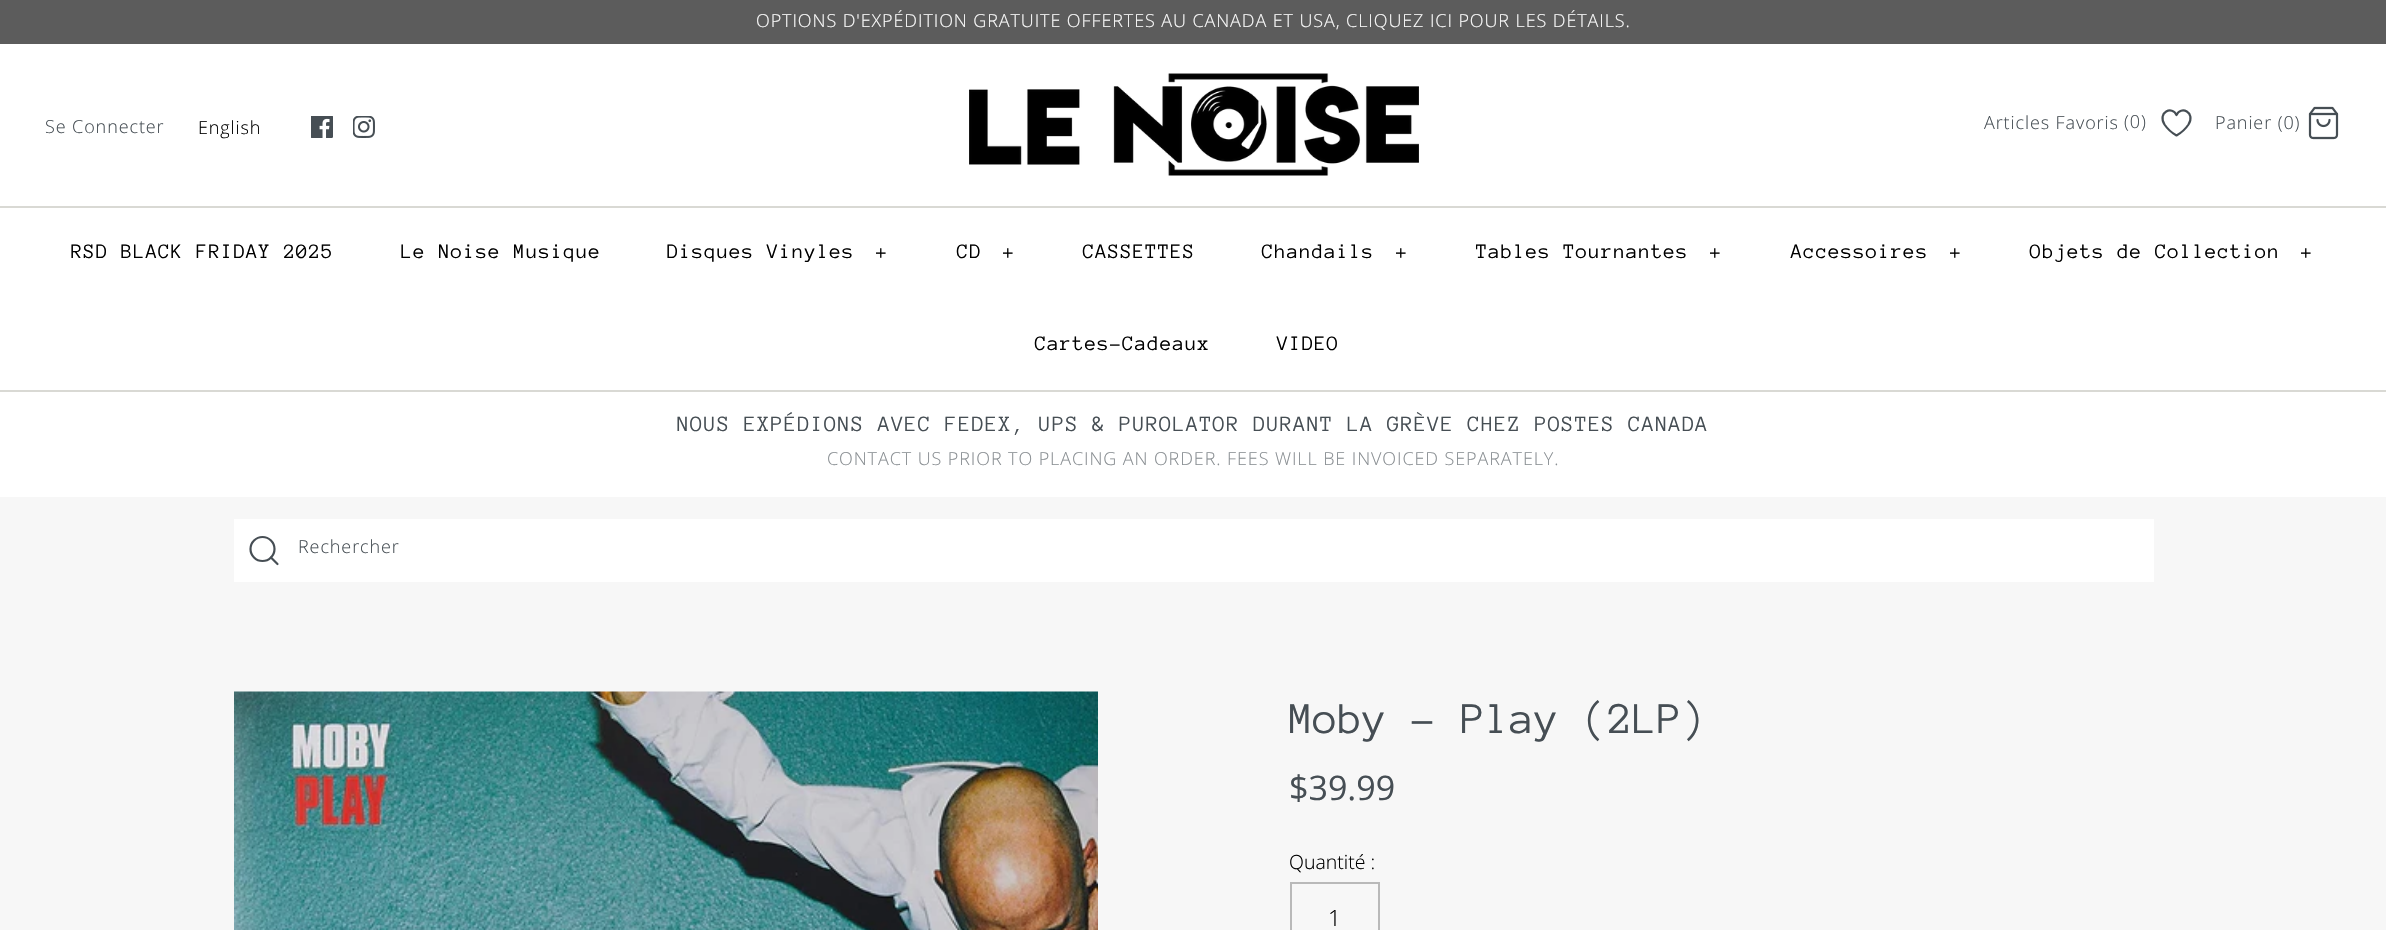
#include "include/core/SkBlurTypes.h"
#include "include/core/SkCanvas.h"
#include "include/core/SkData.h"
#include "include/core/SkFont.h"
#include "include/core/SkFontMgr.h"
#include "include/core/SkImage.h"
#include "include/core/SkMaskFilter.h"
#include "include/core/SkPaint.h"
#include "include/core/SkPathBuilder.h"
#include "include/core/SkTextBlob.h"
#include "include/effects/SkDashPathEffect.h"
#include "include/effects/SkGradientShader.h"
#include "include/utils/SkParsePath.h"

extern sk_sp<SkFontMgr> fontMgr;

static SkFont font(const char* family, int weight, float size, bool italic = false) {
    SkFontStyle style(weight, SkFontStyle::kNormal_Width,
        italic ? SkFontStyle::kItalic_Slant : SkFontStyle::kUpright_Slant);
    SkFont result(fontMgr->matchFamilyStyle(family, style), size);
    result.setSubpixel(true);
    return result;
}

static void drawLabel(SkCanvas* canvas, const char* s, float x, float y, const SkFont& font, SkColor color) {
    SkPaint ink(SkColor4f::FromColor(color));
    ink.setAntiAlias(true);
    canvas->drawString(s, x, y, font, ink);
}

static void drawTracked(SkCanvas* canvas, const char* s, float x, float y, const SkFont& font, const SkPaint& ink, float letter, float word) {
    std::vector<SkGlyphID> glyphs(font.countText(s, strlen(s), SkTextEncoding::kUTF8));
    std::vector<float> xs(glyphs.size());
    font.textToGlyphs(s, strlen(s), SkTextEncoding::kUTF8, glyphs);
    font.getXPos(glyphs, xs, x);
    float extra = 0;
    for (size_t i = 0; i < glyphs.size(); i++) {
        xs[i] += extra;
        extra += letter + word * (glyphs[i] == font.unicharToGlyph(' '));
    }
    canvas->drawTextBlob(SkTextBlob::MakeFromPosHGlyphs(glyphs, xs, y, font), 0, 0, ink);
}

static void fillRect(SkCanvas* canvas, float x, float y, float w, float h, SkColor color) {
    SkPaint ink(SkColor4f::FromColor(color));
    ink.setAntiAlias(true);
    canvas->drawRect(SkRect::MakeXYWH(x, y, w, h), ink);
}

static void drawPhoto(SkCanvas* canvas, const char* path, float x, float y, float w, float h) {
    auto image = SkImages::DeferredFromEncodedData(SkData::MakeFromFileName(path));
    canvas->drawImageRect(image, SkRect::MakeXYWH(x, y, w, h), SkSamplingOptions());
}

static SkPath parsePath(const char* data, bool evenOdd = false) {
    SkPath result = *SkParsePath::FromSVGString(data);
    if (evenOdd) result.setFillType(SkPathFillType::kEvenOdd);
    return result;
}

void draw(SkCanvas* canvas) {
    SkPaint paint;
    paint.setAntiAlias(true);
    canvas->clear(0xFFF7F7F7);
    fillRect(canvas, 0, 0, 2386, 44, 0xFF5C5C5C);
    SkFont font1 = font("Open Sans", 300, 18);
    paint.setColor(0xFFFAFAFA);
    drawTracked(canvas, "OPTIONS D'EXPÉDITION GRATUITE OFFERTES AU CANADA ET USA, CLIQUEZ ICI POUR LES DÉTAILS.", 756, 27, font1, paint, 0.9f, 0);
    fillRect(canvas, 0, 44, 2386, 162, 0xFFFFFFFF);
    drawPhoto(canvas, "assets/img1.png", 969, 73, 450, 103);
    paint.setColor(0xFF464E54);
    drawTracked(canvas, "Se Connecter", 45, 133, font1, paint, 0.9f, 0);
    paint.setColor(0xFF000000);
    drawTracked(canvas, "English", 198, 134, font1, paint, 0.9f, 0);
    drawPhoto(canvas, "assets/img2.png", 311, 116, 22, 22);
    drawPhoto(canvas, "assets/img3.png", 353, 116, 22, 22);
    paint.setColor(0xFF464E54);
    drawTracked(canvas, "Articles Favoris", 1984, 129, font1, paint, 0.9f, 0);
    drawTracked(canvas, "(0)", 2124, 128, font1, paint, 0.9f, 0);
    paint.setStroke(true);
    paint.setStrokeWidth(2.2f);
    paint.setStrokeCap(SkPaint::kRound_Cap);
    paint.setStrokeJoin(SkPaint::kRound_Join);
    canvas->drawPath(parsePath("M2176.5 135.5C2172 133 2167.5 129 2164.5 124.5C2157 112 2172.5 105.5 2176.5 115C2180.5 105.5 2196 112 2188.5 124.5C2185.5 129 2181 133 2176.5 135.5Z"), paint);
    paint.setStroke(false);
    drawTracked(canvas, "Panier (0)", 2215, 129, font1, paint, 0.9f, 0);
    drawPhoto(canvas, "assets/img4.png", 2308, 106, 31, 34);
    fillRect(canvas, 0, 390, 2386, 2, 0xFFD9D9D4);
    fillRect(canvas, 0, 208, 2386, 182, 0xFFFFFFFF);
    fillRect(canvas, 0, 206, 2386, 2, 0xFFD9D9D4);
    SkFont font2 = font("Anonymous Pro", 400, 21);
    paint.setColor(0xFF000000);
    drawTracked(canvas, "RSD BLACK FRIDAY 2025", 71, 258, font2, paint, 1.05f, 0);
    drawTracked(canvas, "Le Noise Musique", 401, 258, font2, paint, 1.05f, 0);
    drawTracked(canvas, "Disques Vinyles", 667, 258, font2, paint, 1.05f, 0);
    drawTracked(canvas, "+", 876, 258, font2, paint, 1.05f, 0);
    drawTracked(canvas, "CD", 957, 258, font2, paint, 1.05f, 0);
    drawTracked(canvas, "+", 1003, 258, font2, paint, 1.05f, 0);
    drawTracked(canvas, "CASSETTES", 1083, 258, font2, paint, 1.05f, 0);
    drawTracked(canvas, "Chandails", 1262, 258, font2, paint, 1.05f, 0);
    drawTracked(canvas, "+", 1396, 258, font2, paint, 1.05f, 0);
    drawTracked(canvas, "Tables Tournantes", 1476, 258, font2, paint, 1.05f, 0);
    drawTracked(canvas, "+", 1710, 258, font2, paint, 1.05f, 0);
    drawTracked(canvas, "Accessoires", 1791, 258, font2, paint, 1.05f, 0);
    drawTracked(canvas, "+", 1950, 258, font2, paint, 1.05f, 0);
    drawTracked(canvas, "Objets de Collection", 2030, 258, font2, paint, 1.05f, 0);
    drawTracked(canvas, "+", 2301, 258, font2, paint, 1.05f, 0);
    drawTracked(canvas, "Cartes-Cadeaux", 1035, 350, font2, paint, 1.05f, 0);
    drawTracked(canvas, "VIDEO", 1277, 350, font2, paint, 1.05f, 0);
    fillRect(canvas, 0, 392, 2386, 105, 0xFFFFFFFF);
    SkFont font3 = font("Anonymous Pro", 400, 22.5f);
    paint.setColor(0xFF464E54);
    drawTracked(canvas, "NOUS EXPÉDIONS AVEC FEDEX, UPS & PUROLATOR DURANT LA GRÈVE CHEZ POSTES CANADA", 677, 431, font3, paint, 1.12f, 0);
    paint.setColor(0xFF8A8F93);
    drawTracked(canvas, "CONTACT US PRIOR TO PLACING AN ORDER. FEES WILL BE INVOICED SEPARATELY.", 827, 465, font1, paint, 0.9f, 0);
    fillRect(canvas, 234, 519, 1920, 63, 0xFFFFFFFF);
    paint.setStroke(true);
    paint.setStrokeCap(SkPaint::kButt_Cap);
    paint.setStrokeJoin(SkPaint::kMiter_Join);
    paint.setColor(0xFF464E54);
    canvas->drawCircle(262.5f, 549, 12, paint);
    paint.setStrokeCap(SkPaint::kRound_Cap);
    paint.setStrokeJoin(SkPaint::kRound_Join);
    canvas->drawPath(parsePath("M277.5 564L271 557.5"), paint);
    paint.setStroke(false);
    drawTracked(canvas, "Rechercher", 298, 553, font1, paint, 0.9f, 0);
    drawPhoto(canvas, "assets/img5.png", 234, 691, 864, 239);
    SkFont font4 = font("Anonymous Pro", 400, 45);
    drawLabel(canvas, "Moby - Play (2LP)", 1289, 733, font4, 0xFF464E54);
    SkFont font5 = font("Open Sans", 400, 34);
    drawLabel(canvas, "$39.99", 1289, 800, font5, 0xFF464E54);
    SkFont font6 = font("Open Sans", 300, 19.5f);
    drawLabel(canvas, "Quantité :", 1289, 869, font6, 0xFF000000);
    paint.setStroke(true);
    paint.setStrokeWidth(2);
    paint.setStrokeCap(SkPaint::kButt_Cap);
    paint.setStrokeJoin(SkPaint::kMiter_Join);
    paint.setColor(0xFFB9B9B9);
    canvas->drawRect(SkRect::MakeXYWH(1291, 883, 88, 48), paint);
    SkFont font7 = font("Open Sans", 300, 22.5f);
    drawLabel(canvas, "1", 1328, 926, font7, 0xFF000000);
}
